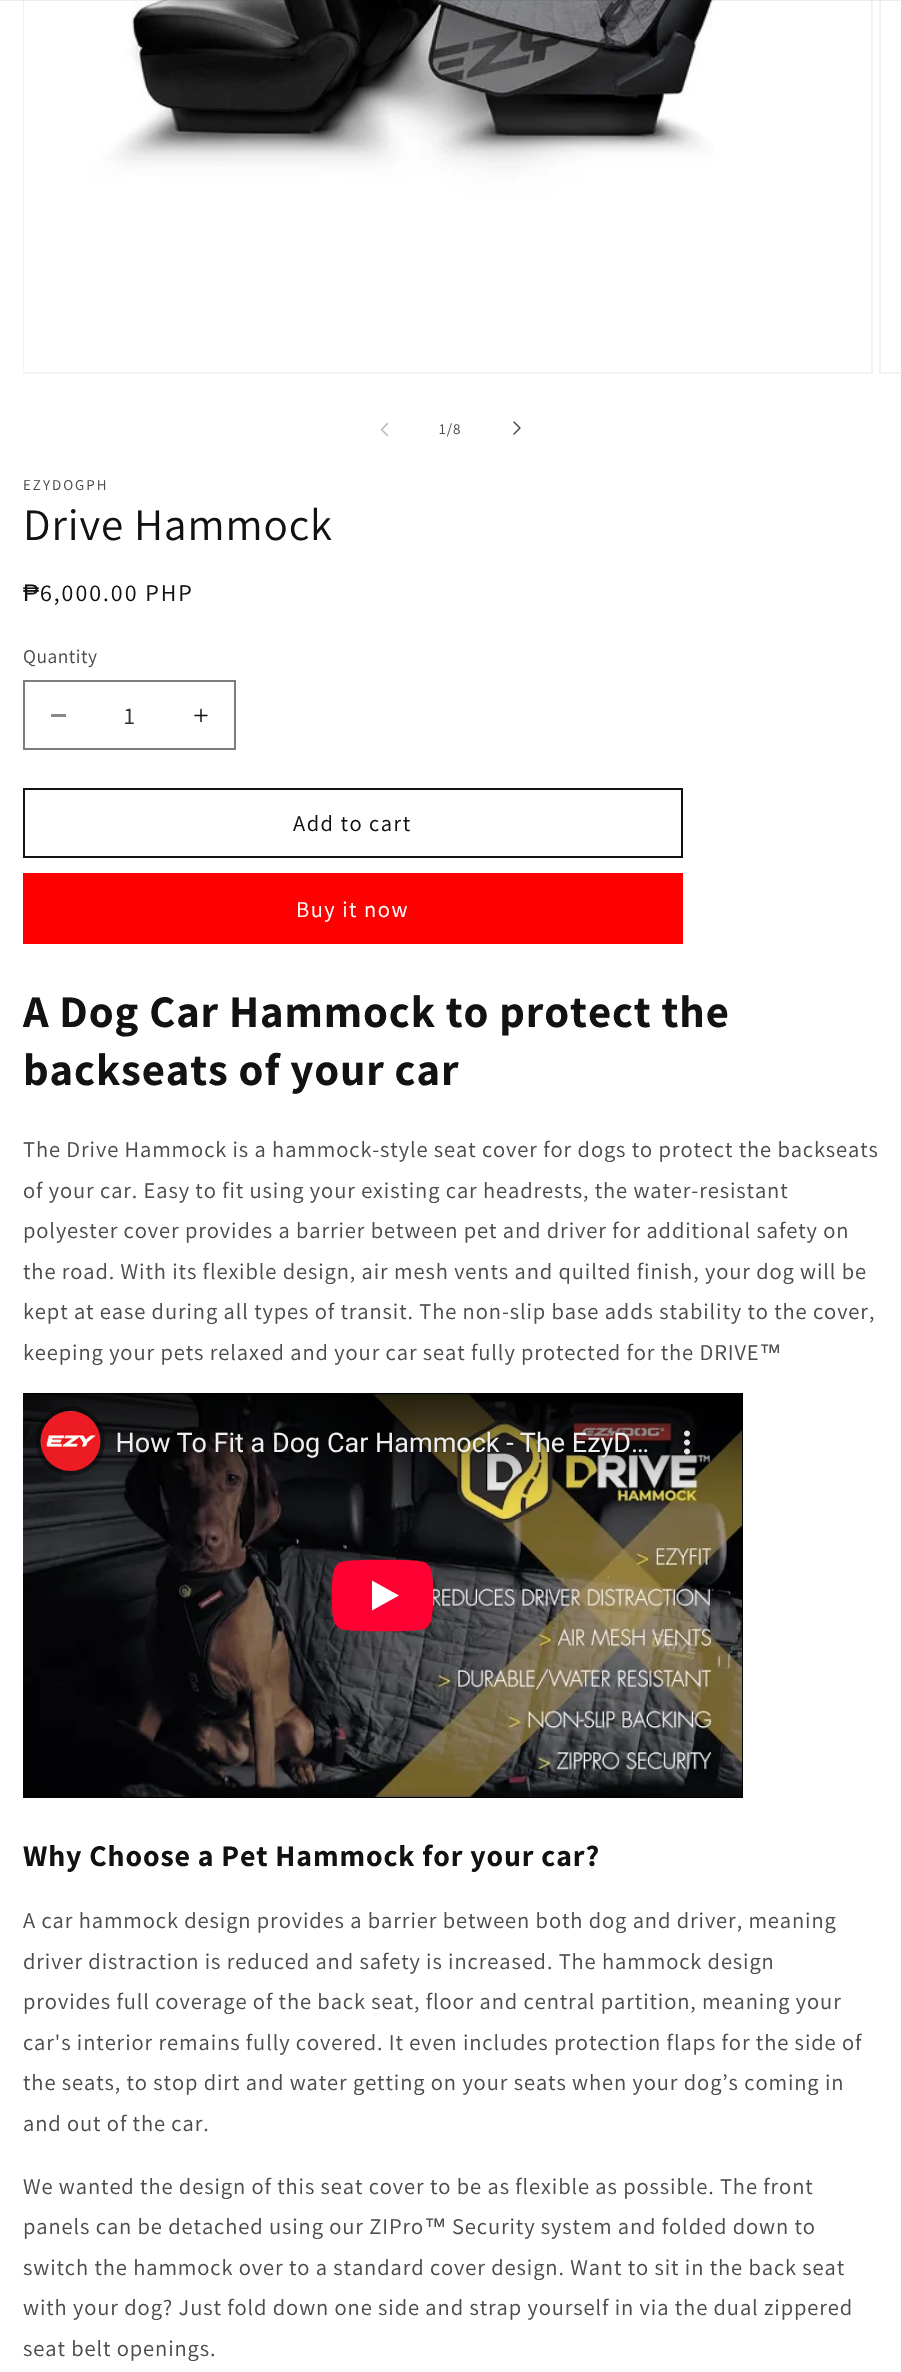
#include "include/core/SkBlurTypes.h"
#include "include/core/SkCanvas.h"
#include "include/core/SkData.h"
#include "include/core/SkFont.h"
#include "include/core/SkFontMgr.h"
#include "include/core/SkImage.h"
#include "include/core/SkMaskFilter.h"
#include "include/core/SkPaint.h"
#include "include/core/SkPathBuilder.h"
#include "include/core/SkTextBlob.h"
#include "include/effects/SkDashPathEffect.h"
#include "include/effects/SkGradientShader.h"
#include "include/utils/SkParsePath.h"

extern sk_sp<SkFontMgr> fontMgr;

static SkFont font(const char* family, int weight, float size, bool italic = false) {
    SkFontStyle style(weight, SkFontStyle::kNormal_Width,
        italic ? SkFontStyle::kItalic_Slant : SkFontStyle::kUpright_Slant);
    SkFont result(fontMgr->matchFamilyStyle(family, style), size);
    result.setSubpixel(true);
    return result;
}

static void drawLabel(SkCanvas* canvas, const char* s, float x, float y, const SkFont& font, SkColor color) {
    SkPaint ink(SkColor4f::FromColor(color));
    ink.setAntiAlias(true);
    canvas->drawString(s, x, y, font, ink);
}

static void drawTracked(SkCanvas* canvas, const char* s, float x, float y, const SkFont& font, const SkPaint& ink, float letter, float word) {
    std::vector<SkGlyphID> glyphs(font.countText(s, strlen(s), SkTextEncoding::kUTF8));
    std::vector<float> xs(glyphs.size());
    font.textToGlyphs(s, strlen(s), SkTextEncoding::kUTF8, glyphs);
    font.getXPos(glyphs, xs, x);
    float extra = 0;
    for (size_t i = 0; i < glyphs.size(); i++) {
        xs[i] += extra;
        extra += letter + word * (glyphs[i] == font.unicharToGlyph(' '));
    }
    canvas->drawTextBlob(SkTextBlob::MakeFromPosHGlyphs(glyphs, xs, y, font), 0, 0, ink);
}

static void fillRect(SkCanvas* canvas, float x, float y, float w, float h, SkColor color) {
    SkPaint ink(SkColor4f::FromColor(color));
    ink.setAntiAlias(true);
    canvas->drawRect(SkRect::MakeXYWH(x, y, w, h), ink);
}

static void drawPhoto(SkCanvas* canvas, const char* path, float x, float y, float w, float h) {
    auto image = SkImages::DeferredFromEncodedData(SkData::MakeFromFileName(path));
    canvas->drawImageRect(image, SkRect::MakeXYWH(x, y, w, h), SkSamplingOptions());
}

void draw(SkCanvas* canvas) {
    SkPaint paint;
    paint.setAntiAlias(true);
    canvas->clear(0xFFFFFFFF);
    paint.setStroke(true);
    paint.setStrokeWidth(2);
    paint.setColor(0xFFF3F3F3);
    canvas->drawRect(SkRect::MakeXYWH(24, -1, 848, 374), paint);
    drawPhoto(canvas, "assets/img1.png", 24, 0, 689, 371);
    canvas->drawRect(SkRect::MakeXYWH(880, -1, 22, 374), paint);
    fillRect(canvas, 0, 0, 901, 1, 0x14121212);
    drawPhoto(canvas, "assets/img2.png", 380, 422, 9, 14);
    SkFont font1 = font("Assistant", 400, 15);
    paint.setStroke(false);
    paint.setColor(0xFF4D4D4D);
    drawTracked(canvas, "1/8", 439, 434, font1, paint, 1, 0);
    drawPhoto(canvas, "assets/img3.png", 513, 421, 8, 14);
    drawTracked(canvas, "EZYDOGPH", 23, 490, font1, paint, 2, 0);
    SkFont font2 = font("Assistant", 400, 45);
    paint.setColor(0xFF121212);
    drawTracked(canvas, "Drive Hammock", 23, 540, font2, paint, 0.9f, 0);
    SkFont font3 = font("Liberation Sans", 400, 24);
    drawTracked(canvas, "₱", 23, 601, font3, paint, 2, 0);
    SkFont font4 = font("Assistant", 400, 24);
    drawTracked(canvas, "6,000.00 PHP", 40, 601, font4, paint, 2, 0);
    SkFont font5 = font("Assistant", 400, 19.5f);
    paint.setColor(0xFF4D4D4D);
    drawTracked(canvas, "Quantity", 23, 663, font5, paint, 0.5f, 0);
    fillRect(canvas, 51, 714, 15, 3, 0xFF898989);
    drawPhoto(canvas, "assets/img4.png", 194, 708, 14, 15);
    paint.setStroke(true);
    paint.setColor(0xFF7D7D7D);
    canvas->drawRect(SkRect::MakeXYWH(24, 681, 211, 68), paint);
    drawLabel(canvas, "1", 124, 724, font4, 0xFF363636);
    paint.setColor(0xFF121212);
    canvas->drawRect(SkRect::MakeXYWH(24, 789, 658, 68), paint);
    SkFont font6 = font("Assistant", 400, 22.5f);
    paint.setStroke(false);
    drawTracked(canvas, "Add to cart", 293, 831, font6, paint, 1.5f, 0);
    fillRect(canvas, 23, 873, 660, 71, 0xFFFF0000);
    paint.setColor(0xFFFFFFFF);
    drawTracked(canvas, "Buy it now", 296, 917, font6, paint, 1.5f, 0);
    SkFont font7 = font("Assistant", 700, 45);
    paint.setColor(0xFF121212);
    drawTracked(canvas, "A Dog Car Hammock to protect the", 23, 1027, font7, paint, 0.9f, 0);
    drawTracked(canvas, "backseats of your car", 23, 1085, font7, paint, 0.9f, 0);
    paint.setColor(0xFF4D4D4D);
    drawTracked(canvas, "The Drive Hammock is a hammock-style seat cover for dogs to protect the backseats", 23, 1157, font6, paint, 0.9f, 0);
    drawTracked(canvas, "of your car. Easy to fit using your existing car headrests, the water-resistant", 23, 1198, font6, paint, 0.9f, 0);
    drawTracked(canvas, "polyester cover provides a barrier between pet and driver for additional safety on", 23, 1238, font6, paint, 0.9f, 0);
    drawTracked(canvas, "the road. With its flexible design, air mesh vents and quilted finish, your dog will be", 23, 1279, font6, paint, 0.9f, 0);
    drawTracked(canvas, "kept at ease during all types of transit. The non-slip base adds stability to the cover,", 23, 1319, font6, paint, 0.9f, 0);
    drawTracked(canvas, "keeping your pets relaxed and your car seat fully protected for the DRIVE", 23, 1360, font6, paint, 0.9f, 0);
    SkFont font8 = font("Liberation Sans", 400, 22.5f);
    drawTracked(canvas, "™", 759, 1360, font8, paint, 0.9f, 0);
    drawPhoto(canvas, "assets/img5.png", 23, 1393, 720, 405);
    SkFont font9 = font("Assistant", 700, 30);
    paint.setColor(0xFF121212);
    drawTracked(canvas, "Why Choose a Pet Hammock for your car?", 23, 1866, font9, paint, 0.9f, 0);
    paint.setColor(0xFF4D4D4D);
    drawTracked(canvas, "A car hammock design provides a barrier between both dog and driver, meaning", 23, 1928, font6, paint, 0.9f, 0);
    drawTracked(canvas, "driver distraction is reduced and safety is increased. The hammock design", 23, 1969, font6, paint, 0.9f, 0);
    drawTracked(canvas, "provides full coverage of the back seat, floor and central partition, meaning your", 23, 2009, font6, paint, 0.9f, 0);
    drawTracked(canvas, "car's interior remains fully covered. It even includes protection flaps for the side of", 23, 2050, font6, paint, 0.9f, 0);
    drawTracked(canvas, "the seats, to stop dirt and water getting on your seats when your dog’s coming in", 23, 2090, font6, paint, 0.9f, 0);
    drawTracked(canvas, "and out of the car.", 23, 2131, font6, paint, 0.9f, 0);
    drawTracked(canvas, "We wanted the design of this seat cover to be as flexible as possible. The front", 23, 2194, font6, paint, 0.9f, 0);
    drawTracked(canvas, "panels can be detached using our ZIPro", 23, 2234, font6, paint, 0.9f, 0);
    drawTracked(canvas, "™", 424, 2234, font8, paint, 0.9f, 0);
    drawTracked(canvas, "Security system and folded down to", 452, 2234, font6, paint, 0.9f, 0);
    drawTracked(canvas, "switch the hammock over to a standard cover design. Want to sit in the back seat", 23, 2275, font6, paint, 0.9f, 0);
    drawTracked(canvas, "with your dog? Just fold down one side and strap yourself in via the dual zippered", 23, 2315, font6, paint, 0.9f, 0);
    drawTracked(canvas, "seat belt openings.", 23, 2356, font6, paint, 0.9f, 0);
}
